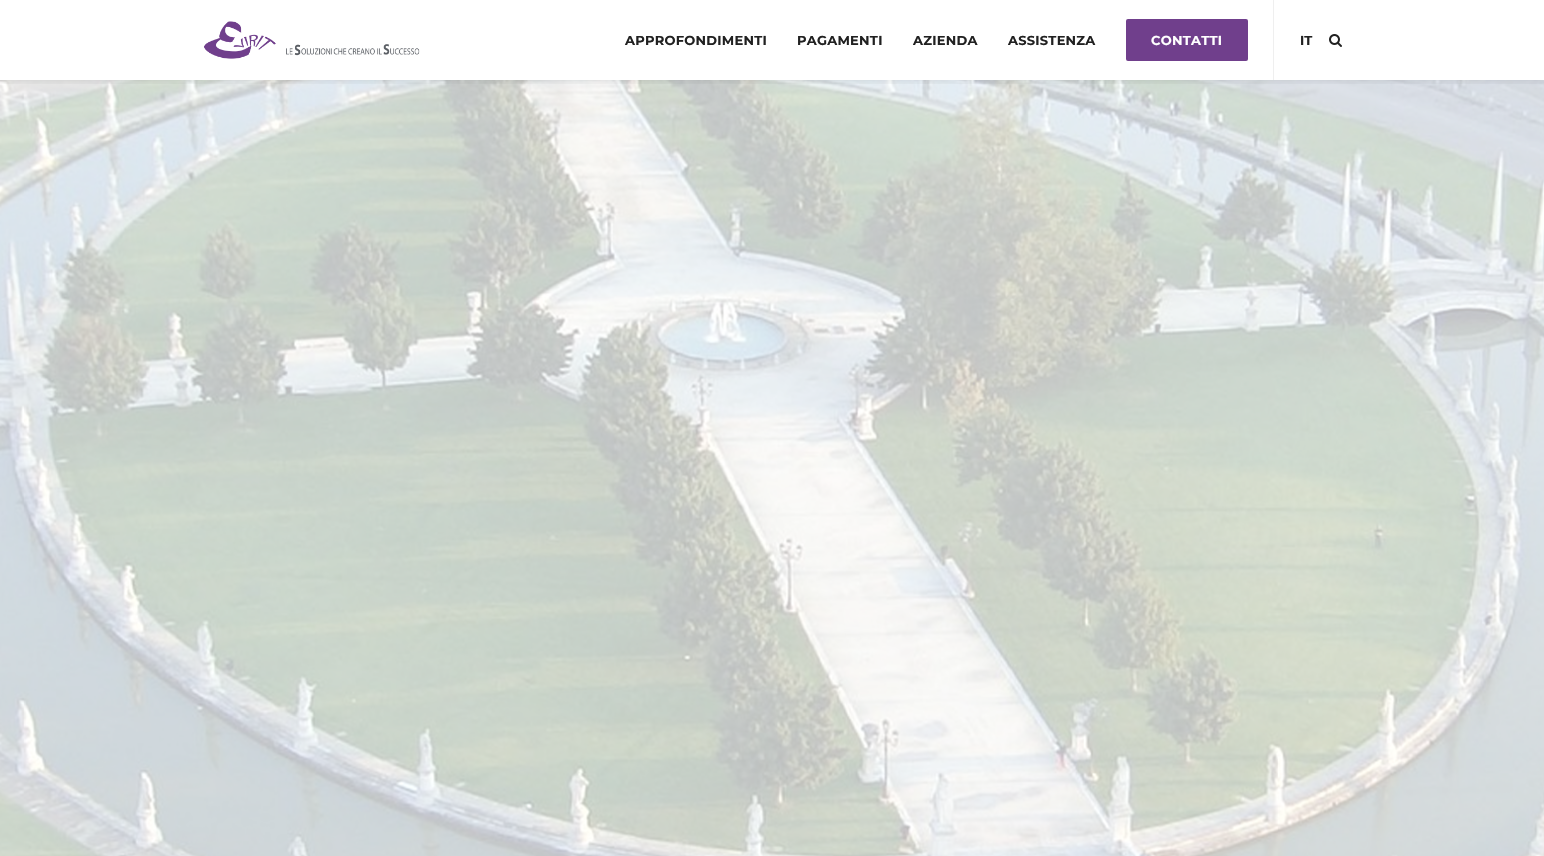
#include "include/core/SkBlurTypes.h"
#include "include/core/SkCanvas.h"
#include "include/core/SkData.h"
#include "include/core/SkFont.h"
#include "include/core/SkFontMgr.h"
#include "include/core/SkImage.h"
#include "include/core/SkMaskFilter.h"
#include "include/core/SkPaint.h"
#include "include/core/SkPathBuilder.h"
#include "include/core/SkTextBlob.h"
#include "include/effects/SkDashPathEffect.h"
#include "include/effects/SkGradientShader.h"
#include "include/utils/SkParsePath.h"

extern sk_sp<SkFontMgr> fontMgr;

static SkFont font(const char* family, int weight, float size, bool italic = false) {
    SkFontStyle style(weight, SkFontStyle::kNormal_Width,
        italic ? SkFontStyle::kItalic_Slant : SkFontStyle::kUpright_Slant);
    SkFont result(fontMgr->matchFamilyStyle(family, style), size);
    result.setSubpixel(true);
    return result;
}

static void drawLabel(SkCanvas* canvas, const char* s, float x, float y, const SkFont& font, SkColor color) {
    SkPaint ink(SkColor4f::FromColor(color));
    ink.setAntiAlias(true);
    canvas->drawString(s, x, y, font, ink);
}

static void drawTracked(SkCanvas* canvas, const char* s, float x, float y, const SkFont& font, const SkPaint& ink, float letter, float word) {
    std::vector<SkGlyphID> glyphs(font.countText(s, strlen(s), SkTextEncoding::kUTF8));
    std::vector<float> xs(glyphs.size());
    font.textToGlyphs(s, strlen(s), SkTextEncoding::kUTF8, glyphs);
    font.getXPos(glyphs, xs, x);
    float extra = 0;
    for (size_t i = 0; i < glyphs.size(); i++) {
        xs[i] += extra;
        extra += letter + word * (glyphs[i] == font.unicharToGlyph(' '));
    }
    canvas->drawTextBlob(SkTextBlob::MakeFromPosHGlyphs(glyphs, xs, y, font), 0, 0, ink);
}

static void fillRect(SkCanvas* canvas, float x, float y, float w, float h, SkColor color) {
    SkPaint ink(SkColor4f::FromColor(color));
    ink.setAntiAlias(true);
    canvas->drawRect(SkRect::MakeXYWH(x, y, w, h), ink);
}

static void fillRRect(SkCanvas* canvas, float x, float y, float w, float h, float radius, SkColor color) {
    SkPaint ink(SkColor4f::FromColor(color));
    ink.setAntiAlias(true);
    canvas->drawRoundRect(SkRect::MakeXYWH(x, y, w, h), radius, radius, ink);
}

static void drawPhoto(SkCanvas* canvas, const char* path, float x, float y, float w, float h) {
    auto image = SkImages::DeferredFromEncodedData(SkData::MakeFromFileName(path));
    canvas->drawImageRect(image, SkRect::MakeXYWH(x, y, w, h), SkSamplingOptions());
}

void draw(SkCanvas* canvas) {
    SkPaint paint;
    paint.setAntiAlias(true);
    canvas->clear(0xFFFFFFFF);
    drawPhoto(canvas, "assets/img3.png", 0, 80, 1544, 776);
    canvas->save();
    canvas->clipRect(SkRect::MakeXYWH(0, 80, 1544, 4));
    paint.setColor(0x1A000000);
    paint.setMaskFilter(SkMaskFilter::MakeBlur(kNormal_SkBlurStyle, 4));
    canvas->drawRect(SkRect::MakeXYWH(0, 1, 1544, 80), paint);
    paint.setMaskFilter(nullptr);
    canvas->restore();
    drawPhoto(canvas, "assets/img1.png", 204, 21, 216, 38);
    SkFont font1 = font("Montserrat", 700, 13);
    paint.setColor(0xFF212121);
    drawTracked(canvas, "APPROFONDIMENTI", 625, 45, font1, paint, 0.25f, 0);
    drawTracked(canvas, "PAGAMENTI", 797, 45, font1, paint, 0.25f, 0);
    drawTracked(canvas, "AZIENDA", 913, 45, font1, paint, 0.25f, 0);
    drawTracked(canvas, "ASSISTENZA", 1008, 45, font1, paint, 0.25f, 0);
    fillRRect(canvas, 1126, 19, 122, 42, 2, 0xFF703F8C);
    paint.setColor(0xFFFFFFFF);
    drawTracked(canvas, "CONTATTI", 1151, 45, font1, paint, 0.25f, 0);
    fillRect(canvas, 1273, 0, 1, 80, 0xFFEFEFEF);
    drawLabel(canvas, "IT", 1300, 45, font1, 0xFF212121);
    drawPhoto(canvas, "assets/img2.png", 1329, 34, 13, 13);
}
